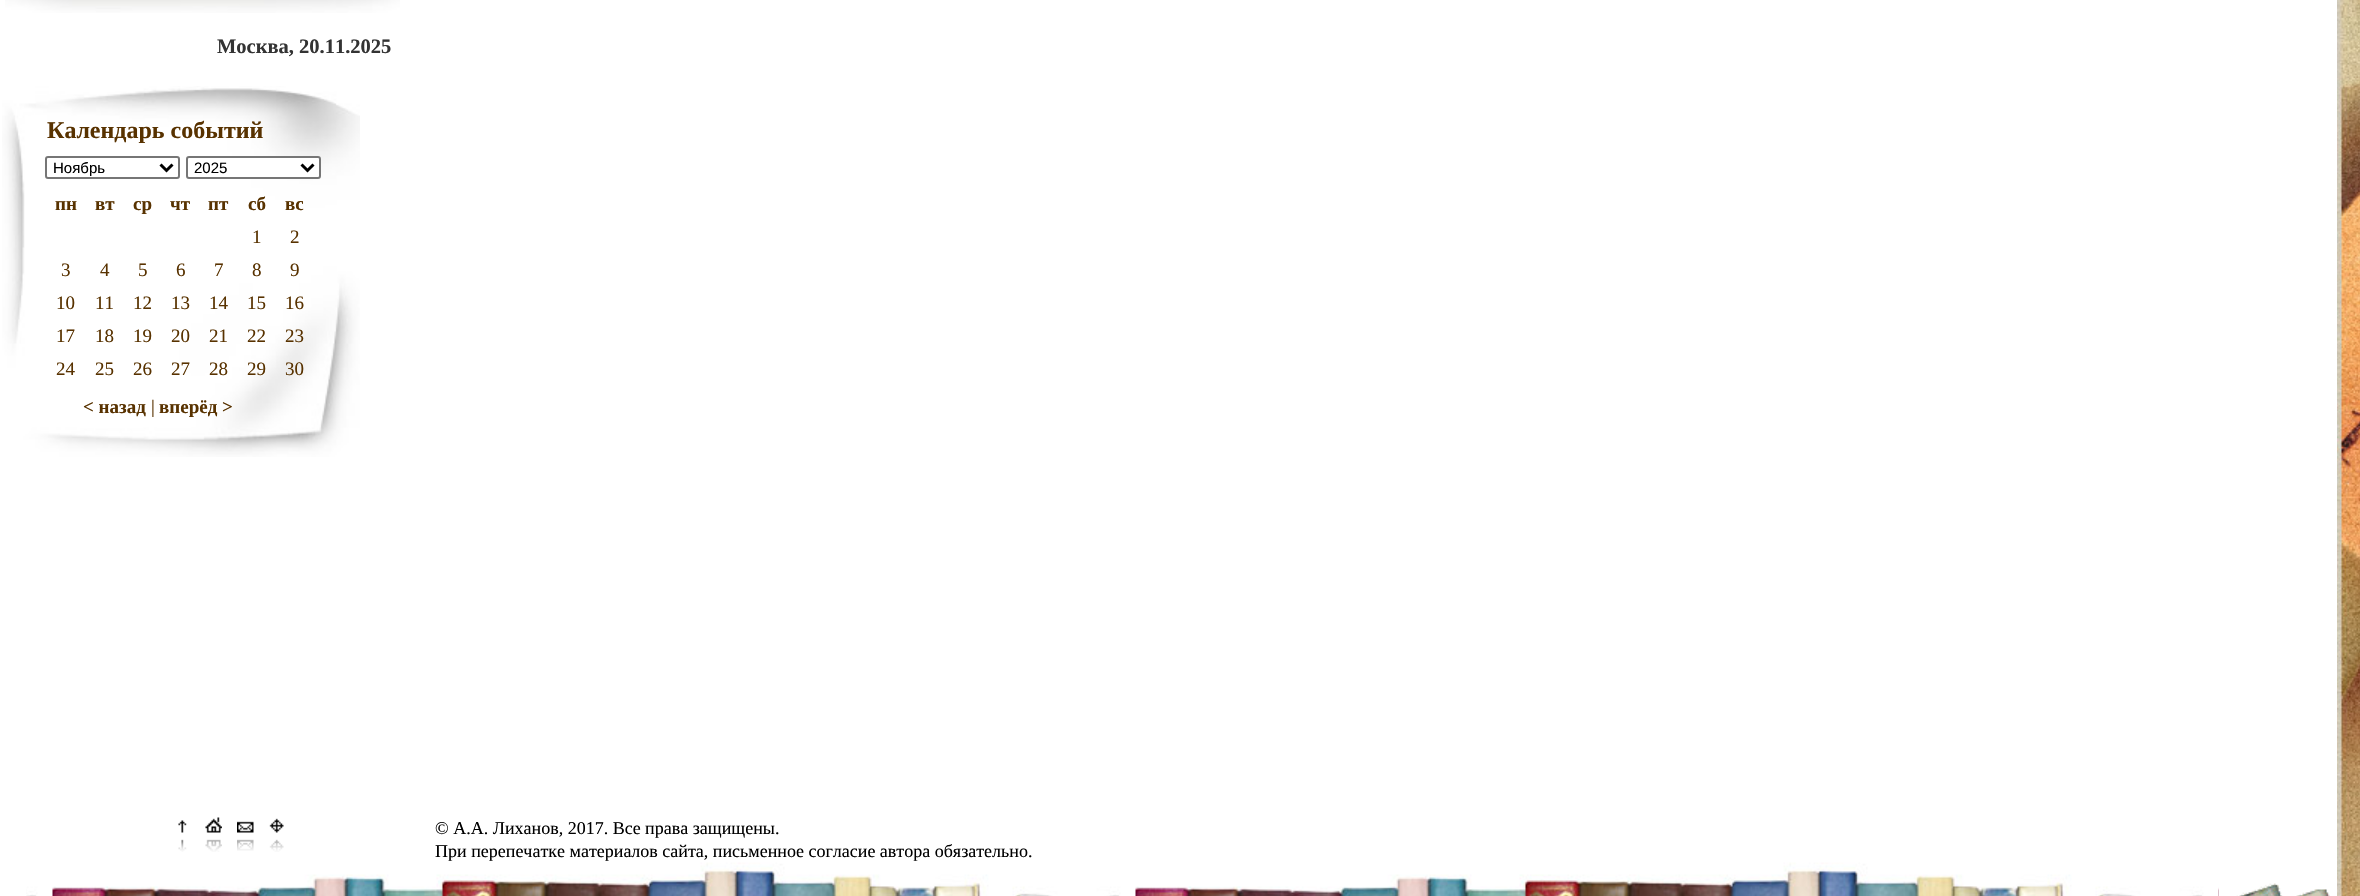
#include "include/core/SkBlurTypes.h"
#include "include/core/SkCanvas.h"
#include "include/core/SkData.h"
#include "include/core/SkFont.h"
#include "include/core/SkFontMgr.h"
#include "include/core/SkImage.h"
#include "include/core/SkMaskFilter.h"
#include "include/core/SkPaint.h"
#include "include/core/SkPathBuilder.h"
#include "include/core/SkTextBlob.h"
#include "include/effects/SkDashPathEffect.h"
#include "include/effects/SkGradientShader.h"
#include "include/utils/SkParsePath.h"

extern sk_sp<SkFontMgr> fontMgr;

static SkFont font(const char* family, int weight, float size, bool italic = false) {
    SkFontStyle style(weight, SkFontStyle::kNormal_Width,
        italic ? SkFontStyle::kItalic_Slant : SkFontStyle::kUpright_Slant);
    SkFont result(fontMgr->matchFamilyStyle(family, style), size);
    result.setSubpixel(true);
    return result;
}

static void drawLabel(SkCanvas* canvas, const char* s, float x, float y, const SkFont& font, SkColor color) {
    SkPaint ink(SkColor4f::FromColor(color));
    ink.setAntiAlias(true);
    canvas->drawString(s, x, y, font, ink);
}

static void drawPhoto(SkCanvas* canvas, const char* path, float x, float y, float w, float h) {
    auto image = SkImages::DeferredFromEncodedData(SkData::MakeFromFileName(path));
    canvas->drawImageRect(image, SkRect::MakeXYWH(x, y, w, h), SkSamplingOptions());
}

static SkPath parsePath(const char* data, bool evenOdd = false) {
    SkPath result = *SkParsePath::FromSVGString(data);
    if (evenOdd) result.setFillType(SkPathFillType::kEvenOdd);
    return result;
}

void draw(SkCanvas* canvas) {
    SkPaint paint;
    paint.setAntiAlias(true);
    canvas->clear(0xFFFFFFFF);
    drawPhoto(canvas, "assets/img1.png", 2337, 0, 23, 896);
    drawPhoto(canvas, "assets/img2.png", 5, 0, 395, 13);
    SkFont font1 = font("Liberation Serif", 700, 20.5f);
    drawLabel(canvas, "Москва, 20.11.2025", 217, 53, font1, 0xFF333333);
    drawPhoto(canvas, "assets/img3.png", 2, 86, 358, 371);
    SkFont font2 = font("Liberation Serif", 700, 24);
    drawLabel(canvas, "Календарь событий", 47, 138, font2, 0xFF583200);
    paint.setStroke(true);
    paint.setStrokeWidth(2);
    paint.setColor(0xFF767676);
    canvas->drawRoundRect(SkRect::MakeXYWH(46, 157, 133, 21), 2, 2, paint);
    paint.setStrokeWidth(3);
    paint.setColor(0xFF000000);
    canvas->drawPath(parsePath("M160.5 164.5L166.5 170.5L172.5 164.5"), paint);
    SkFont font3 = font("Liberation Sans", 400, 15);
    drawLabel(canvas, "Ноябрь", 53, 173, font3, 0xFF000000);
    paint.setStroke(false);
    paint.setColor(0xFFFFFFFF);
    canvas->drawRoundRect(SkRect::MakeXYWH(187, 157, 133, 21), 2, 2, paint);
    paint.setStroke(true);
    paint.setStrokeWidth(2);
    paint.setColor(0xFF767676);
    canvas->drawRoundRect(SkRect::MakeXYWH(187, 157, 133, 21), 2, 2, paint);
    paint.setStrokeWidth(3);
    paint.setColor(0xFF000000);
    canvas->drawPath(parsePath("M301.5 164.5L307.5 170.5L313.5 164.5"), paint);
    drawLabel(canvas, "2025", 194, 173, font3, 0xFF000000);
    SkFont font4 = font("Liberation Serif", 700, 19);
    drawLabel(canvas, "пн", 55, 210, font4, 0xFF583200);
    drawLabel(canvas, "вт", 95, 210, font4, 0xFF583200);
    drawLabel(canvas, "ср", 133, 210, font4, 0xFF583200);
    drawLabel(canvas, "чт", 170, 210, font4, 0xFF583200);
    drawLabel(canvas, "пт", 208, 210, font4, 0xFF583200);
    drawLabel(canvas, "сб", 248, 210, font4, 0xFF583200);
    drawLabel(canvas, "вс", 285, 210, font4, 0xFF583200);
    SkFont font5 = font("Liberation Serif", 400, 19);
    drawLabel(canvas, "1", 252, 243, font5, 0xFF583200);
    drawLabel(canvas, "2", 290, 243, font5, 0xFF583200);
    drawLabel(canvas, "3", 61, 276, font5, 0xFF583200);
    drawLabel(canvas, "4", 100, 276, font5, 0xFF583200);
    drawLabel(canvas, "5", 138, 276, font5, 0xFF583200);
    drawLabel(canvas, "6", 176, 276, font5, 0xFF583200);
    drawLabel(canvas, "7", 214, 276, font5, 0xFF583200);
    drawLabel(canvas, "8", 252, 276, font5, 0xFF583200);
    drawLabel(canvas, "9", 290, 276, font5, 0xFF583200);
    drawLabel(canvas, "10", 56, 309, font5, 0xFF583200);
    drawLabel(canvas, "11", 95, 309, font5, 0xFF583200);
    drawLabel(canvas, "12", 133, 309, font5, 0xFF583200);
    drawLabel(canvas, "13", 171, 309, font5, 0xFF583200);
    drawLabel(canvas, "14", 209, 309, font5, 0xFF583200);
    drawLabel(canvas, "15", 247, 309, font5, 0xFF583200);
    drawLabel(canvas, "16", 285, 309, font5, 0xFF583200);
    drawLabel(canvas, "17", 56, 342, font5, 0xFF583200);
    drawLabel(canvas, "18", 95, 342, font5, 0xFF583200);
    drawLabel(canvas, "19", 133, 342, font5, 0xFF583200);
    drawLabel(canvas, "20", 171, 342, font5, 0xFF583200);
    drawLabel(canvas, "21", 209, 342, font5, 0xFF583200);
    drawLabel(canvas, "22", 247, 342, font5, 0xFF583200);
    drawLabel(canvas, "23", 285, 342, font5, 0xFF583200);
    drawLabel(canvas, "24", 56, 375, font5, 0xFF583200);
    drawLabel(canvas, "25", 95, 375, font5, 0xFF583200);
    drawLabel(canvas, "26", 133, 375, font5, 0xFF583200);
    drawLabel(canvas, "27", 171, 375, font5, 0xFF583200);
    drawLabel(canvas, "28", 209, 375, font5, 0xFF583200);
    drawLabel(canvas, "29", 247, 375, font5, 0xFF583200);
    drawLabel(canvas, "30", 285, 375, font5, 0xFF583200);
    drawLabel(canvas, "< назад", 83, 413, font4, 0xFF583200);
    drawLabel(canvas, "|", 151, 413, font5, 0xFF583200);
    drawLabel(canvas, "вперёд >", 159, 413, font4, 0xFF583200);
    drawPhoto(canvas, "assets/img4.png", 178, 820, 9, 32);
    drawPhoto(canvas, "assets/img5.png", 205, 817, 17, 35);
    drawPhoto(canvas, "assets/img6.png", 237, 821, 17, 30);
    drawPhoto(canvas, "assets/img7.png", 269, 818, 15, 34);
    SkFont font6 = font("Liberation Serif", 400, 18);
    drawLabel(canvas, "© А.А. Лиханов, 2017. Все права защищены.", 435, 834, font6, 0xFF000000);
    drawLabel(canvas, "При перепечатке материалов сайта, письменное согласие автора обязательно.", 435, 857, font6, 0xFF000000);
    drawPhoto(canvas, "assets/img8.png", 26, 862, 2193, 34);
    drawPhoto(canvas, "assets/img9.png", 2236, 883, 94, 13);
}
